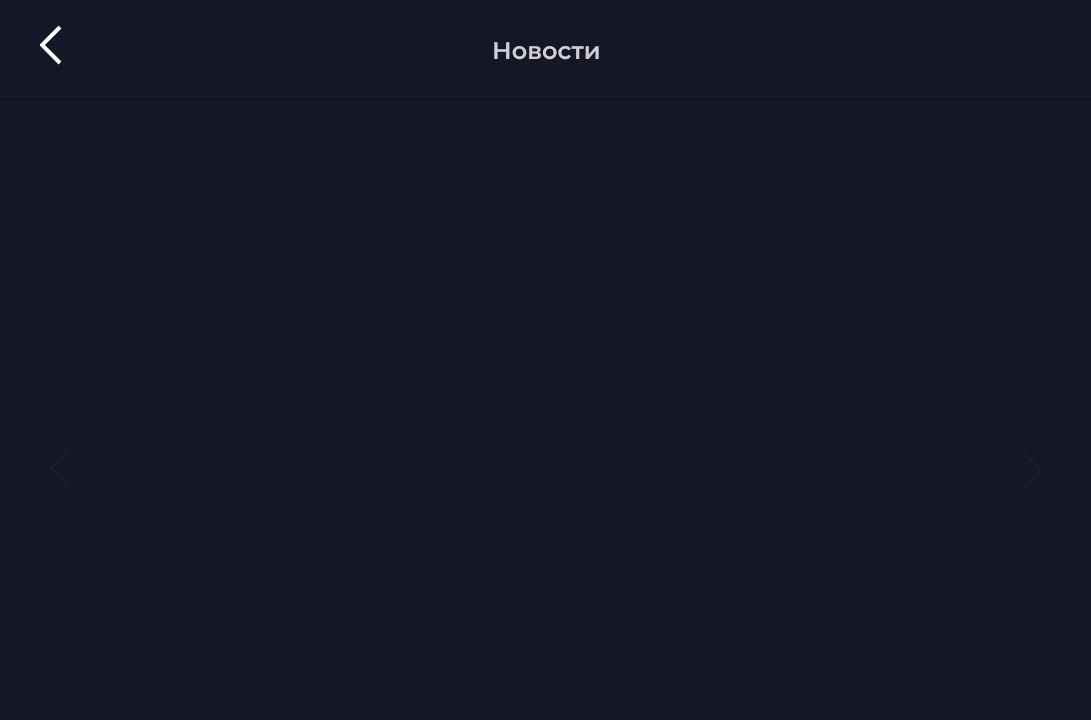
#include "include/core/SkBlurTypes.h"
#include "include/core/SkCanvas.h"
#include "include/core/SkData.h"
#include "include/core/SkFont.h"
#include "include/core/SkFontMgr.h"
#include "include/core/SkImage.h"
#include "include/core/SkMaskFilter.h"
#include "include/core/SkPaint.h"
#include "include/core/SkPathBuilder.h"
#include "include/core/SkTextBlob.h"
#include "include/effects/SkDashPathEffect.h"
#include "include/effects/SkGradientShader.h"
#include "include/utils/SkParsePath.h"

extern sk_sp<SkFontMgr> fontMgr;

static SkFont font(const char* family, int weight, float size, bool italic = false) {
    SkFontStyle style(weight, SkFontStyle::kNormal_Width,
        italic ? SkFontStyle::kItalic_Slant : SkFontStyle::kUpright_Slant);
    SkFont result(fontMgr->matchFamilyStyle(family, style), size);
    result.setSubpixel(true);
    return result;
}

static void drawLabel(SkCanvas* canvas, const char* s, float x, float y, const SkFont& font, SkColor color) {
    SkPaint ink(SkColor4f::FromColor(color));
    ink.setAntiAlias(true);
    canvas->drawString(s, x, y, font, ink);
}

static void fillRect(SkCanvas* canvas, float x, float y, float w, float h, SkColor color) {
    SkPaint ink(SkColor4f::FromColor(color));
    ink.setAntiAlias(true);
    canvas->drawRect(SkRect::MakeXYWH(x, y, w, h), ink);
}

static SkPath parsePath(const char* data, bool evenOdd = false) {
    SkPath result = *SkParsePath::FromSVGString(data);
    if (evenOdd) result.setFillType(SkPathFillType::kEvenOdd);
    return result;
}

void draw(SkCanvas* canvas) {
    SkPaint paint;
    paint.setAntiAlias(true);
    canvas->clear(0xFF151627);
    fillRect(canvas, 0, 98, 1091, 2, 0xFF11121F);
    canvas->save();
    canvas->clipRect(SkRect::MakeXYWH(40, 26, 22, 40));
    paint.setStroke(true);
    paint.setStrokeWidth(4);
    paint.setColor(0xFFFFFFFF);
    canvas->drawPath(parsePath("M60 63L42 45L60 27"), paint);
    canvas->restore();
    SkFont font1 = font("Montserrat", 600, 24);
    drawLabel(canvas, "Новости", 492, 59, font1, 0xFFD0D0D4);
    paint.setStrokeWidth(1.2f);
    paint.setColor(0xFF222222);
    canvas->drawPath(parsePath("M69.5 486.5L51 468L69.5 449.5"), paint);
    canvas->drawPath(parsePath("M1022.5 451.5L1041 470L1022.5 488.5"), paint);
}
